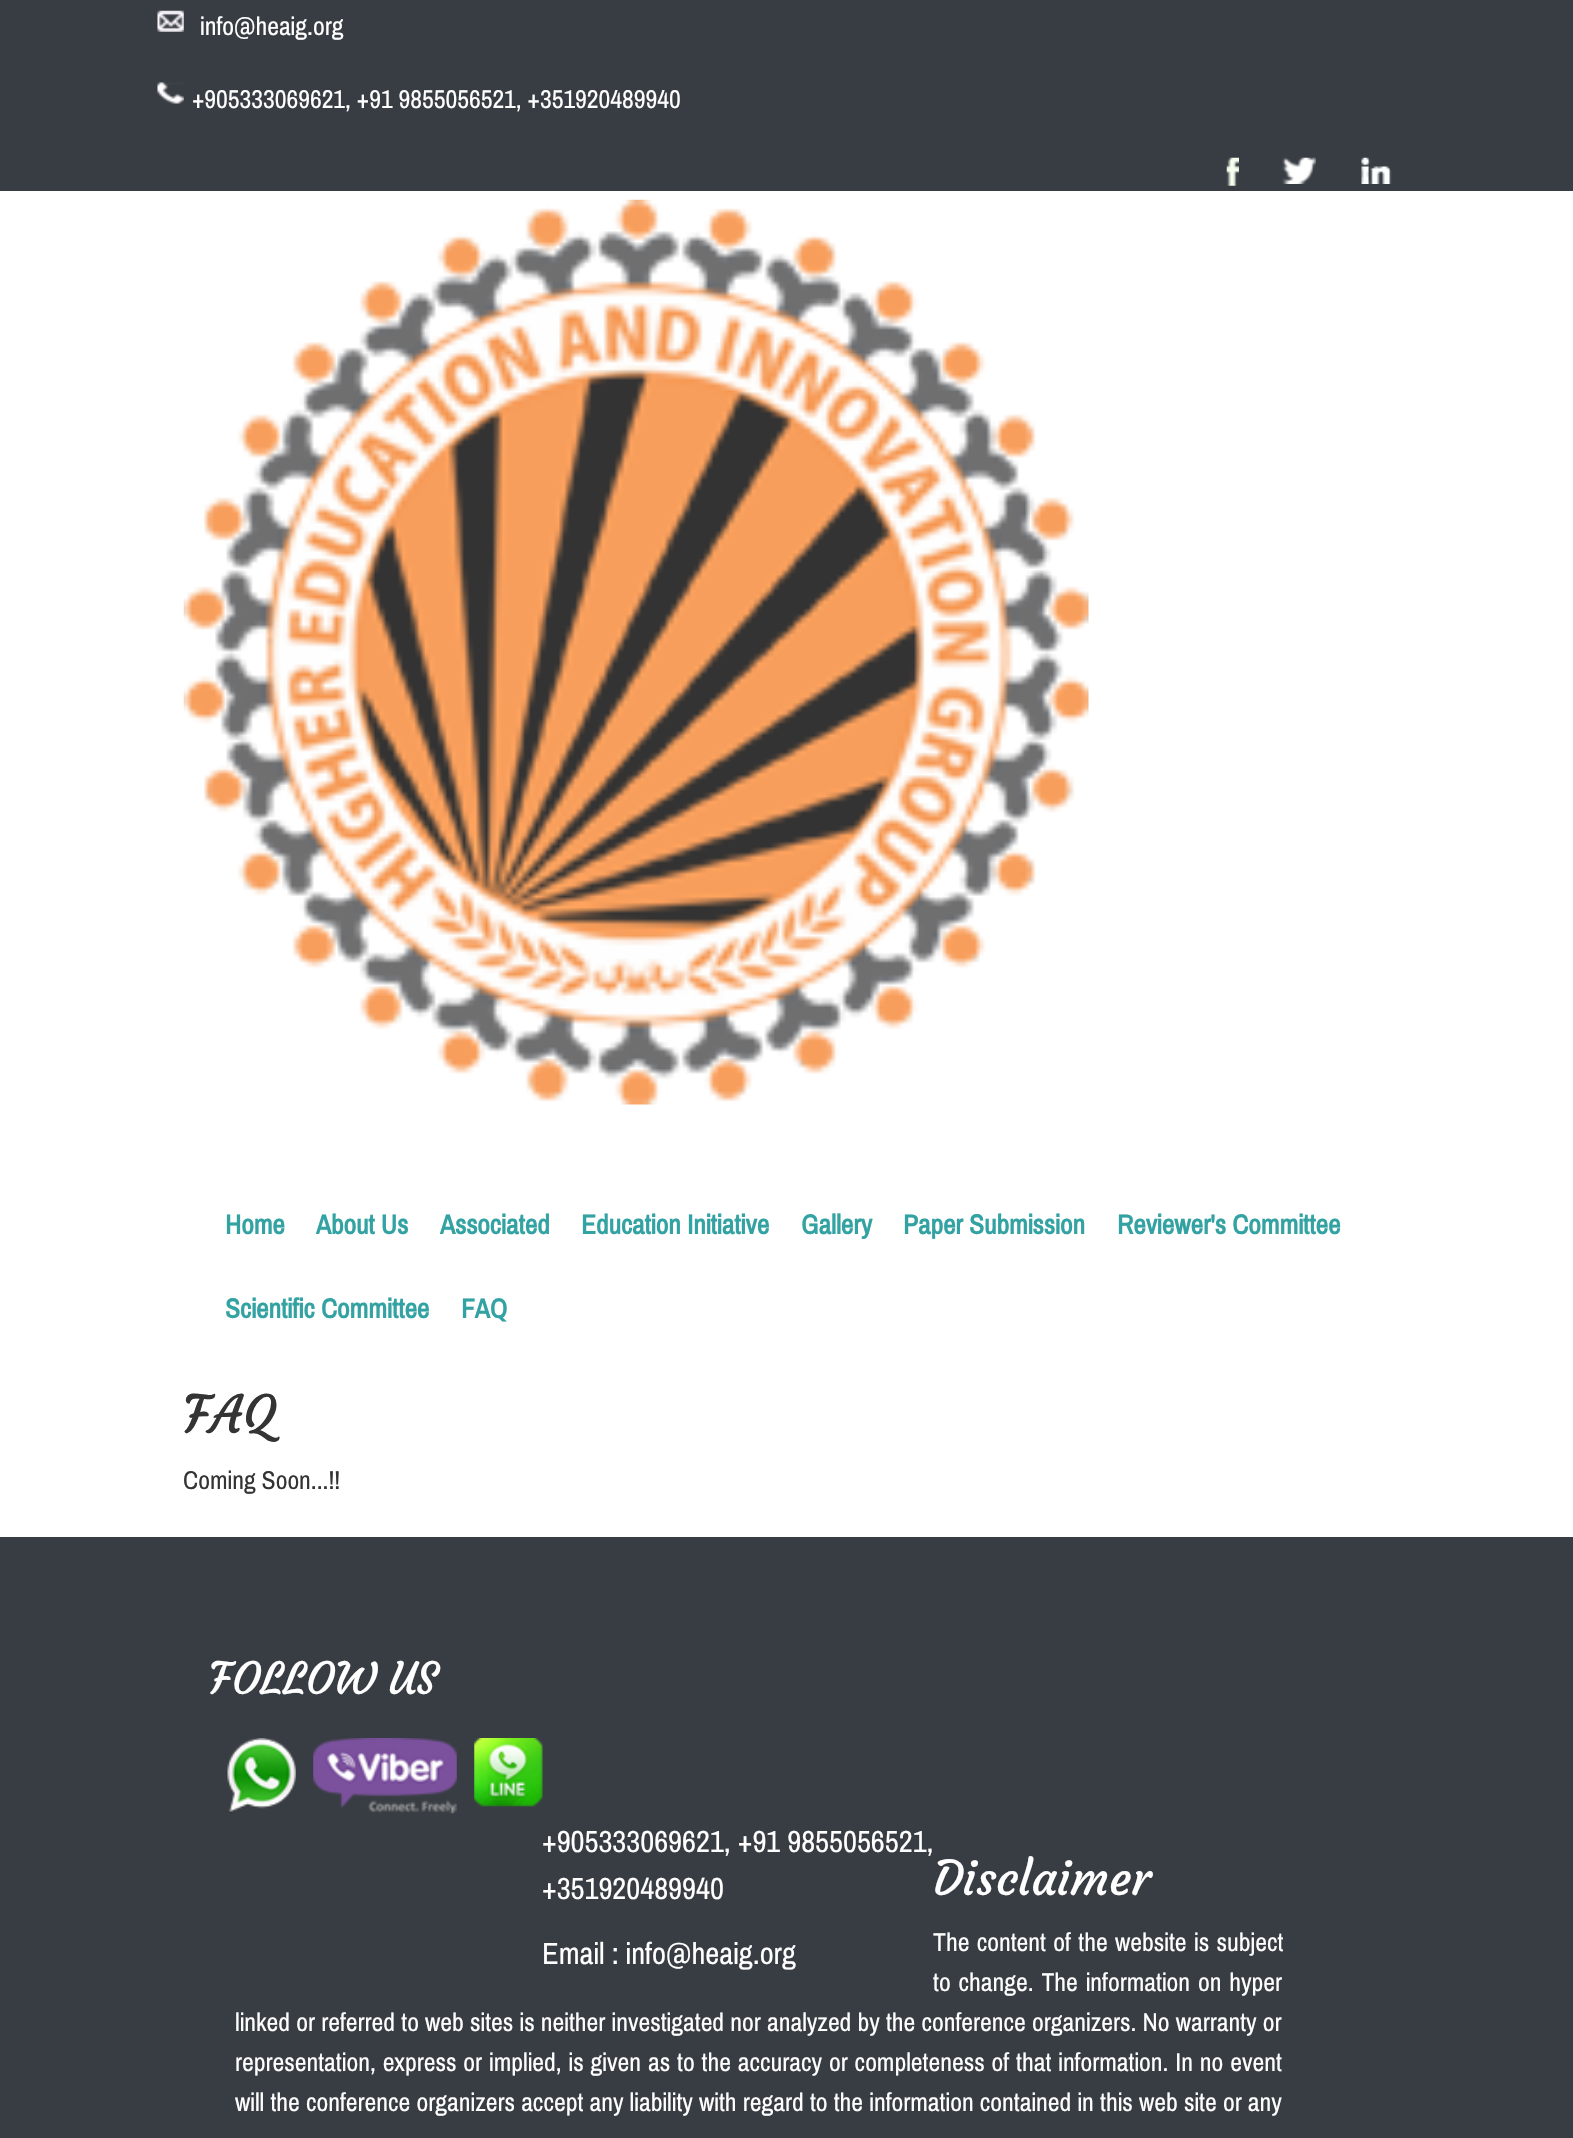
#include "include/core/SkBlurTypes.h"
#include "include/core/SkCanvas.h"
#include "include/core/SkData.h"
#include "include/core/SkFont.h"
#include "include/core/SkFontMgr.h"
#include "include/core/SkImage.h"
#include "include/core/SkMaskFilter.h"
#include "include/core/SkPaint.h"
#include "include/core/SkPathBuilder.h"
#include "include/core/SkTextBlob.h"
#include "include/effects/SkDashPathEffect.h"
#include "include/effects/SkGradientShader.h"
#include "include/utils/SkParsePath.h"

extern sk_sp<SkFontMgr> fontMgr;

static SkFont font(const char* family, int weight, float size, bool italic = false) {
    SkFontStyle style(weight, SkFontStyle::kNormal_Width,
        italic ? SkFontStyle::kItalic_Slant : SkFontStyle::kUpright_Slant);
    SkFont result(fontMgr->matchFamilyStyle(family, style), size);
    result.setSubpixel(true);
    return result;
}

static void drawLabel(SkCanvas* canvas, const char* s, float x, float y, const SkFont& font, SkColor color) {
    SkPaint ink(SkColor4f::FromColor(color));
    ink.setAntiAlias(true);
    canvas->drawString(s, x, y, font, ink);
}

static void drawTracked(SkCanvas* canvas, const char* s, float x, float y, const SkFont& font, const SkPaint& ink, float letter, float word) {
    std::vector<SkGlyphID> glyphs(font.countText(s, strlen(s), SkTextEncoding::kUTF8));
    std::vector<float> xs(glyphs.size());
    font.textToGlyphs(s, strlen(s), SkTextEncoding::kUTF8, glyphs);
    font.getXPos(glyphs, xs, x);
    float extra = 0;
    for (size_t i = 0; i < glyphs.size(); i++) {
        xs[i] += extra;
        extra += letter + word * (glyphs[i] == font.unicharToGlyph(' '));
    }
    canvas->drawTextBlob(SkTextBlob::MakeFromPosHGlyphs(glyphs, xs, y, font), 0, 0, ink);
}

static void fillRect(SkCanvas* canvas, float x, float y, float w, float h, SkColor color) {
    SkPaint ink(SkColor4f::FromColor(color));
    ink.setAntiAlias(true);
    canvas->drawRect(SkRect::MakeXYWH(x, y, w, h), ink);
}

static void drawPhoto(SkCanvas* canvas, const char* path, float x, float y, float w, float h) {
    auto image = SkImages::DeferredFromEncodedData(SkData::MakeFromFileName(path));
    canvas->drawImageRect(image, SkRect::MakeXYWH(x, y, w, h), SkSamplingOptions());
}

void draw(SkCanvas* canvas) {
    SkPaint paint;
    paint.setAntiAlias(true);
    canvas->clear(0xFFFFFFFF);
    fillRect(canvas, 0, 0, 1573, 191, 0xFF383D43);
    drawPhoto(canvas, "assets/img1.png", 157, 10, 27, 22);
    SkFont font1 = font("Pragati Narrow", 400, 28);
    drawLabel(canvas, "info@heaig.org", 200, 35, font1, 0xFFFFFFFF);
    drawPhoto(canvas, "assets/img2.png", 157, 82, 27, 22);
    drawLabel(canvas, "+905333069621, +91 9855056521, +351920489940", 192, 108, font1, 0xFFFFFFFF);
    drawPhoto(canvas, "assets/img3.png", 1226, 157, 13, 29);
    drawPhoto(canvas, "assets/img4.png", 1282, 157, 34, 27);
    drawPhoto(canvas, "assets/img5.png", 1361, 157, 31, 27);
    drawPhoto(canvas, "assets/img6.png", 183, 199, 906, 906);
    SkFont font2 = font("Pragati Narrow", 700, 29.75f);
    drawLabel(canvas, "Home", 225, 1234, font2, 0xFF33A2A2);
    drawLabel(canvas, "About Us", 316, 1234, font2, 0xFF33A2A2);
    drawLabel(canvas, "Associated", 440, 1234, font2, 0xFF33A2A2);
    drawLabel(canvas, "Education Initiative", 581, 1234, font2, 0xFF33A2A2);
    drawLabel(canvas, "Gallery", 801, 1234, font2, 0xFF33A2A2);
    drawLabel(canvas, "Paper Submission", 903, 1234, font2, 0xFF33A2A2);
    drawLabel(canvas, "Reviewer's Committee", 1117, 1234, font2, 0xFF33A2A2);
    drawLabel(canvas, "Scientific Committee", 225, 1318, font2, 0xFF33A2A2);
    drawLabel(canvas, "FAQ", 461, 1318, font2, 0xFF33A2A2);
    SkFont font3 = font("Courgette", 400, 52);
    drawLabel(canvas, "FAQ", 183, 1433, font3, 0xFF343434);
    drawLabel(canvas, "Coming Soon...!!", 183, 1489, font1, 0xFF343434);
    fillRect(canvas, 0, 1537, 1573, 601, 0xFF383D43);
    SkFont font4 = font("Courgette", 400, 43.75f);
    drawLabel(canvas, "FOLLOW US", 209, 1694, font4, 0xFFFFFFFF);
    drawPhoto(canvas, "assets/img7.png", 227, 1738, 69, 75);
    drawPhoto(canvas, "assets/img8.png", 313, 1738, 144, 76);
    drawPhoto(canvas, "assets/img9.png", 474, 1738, 69, 69);
    SkFont font5 = font("Pragati Narrow", 400, 33.25f);
    drawLabel(canvas, "+905333069621, +91 9855056521,", 542, 1852, font5, 0xFFFFFFFF);
    drawLabel(canvas, "+351920489940", 542, 1899, font5, 0xFFFFFFFF);
    drawLabel(canvas, "Email : info@heaig.org", 542, 1964, font5, 0xFFFFFFFF);
    SkFont font6 = font("Courgette", 400, 47.25f);
    drawLabel(canvas, "Disclaimer", 933, 1895, font6, 0xFFFFFFFF);
    paint.setColor(0xFFFFFFFF);
    drawTracked(canvas, "The content of the website is subject", 933, 1951, font1, paint, 0, 1.5f);
    drawTracked(canvas, "to change. The information on hyper", 933, 1991, font1, paint, 0, 2);
    drawTracked(canvas, "linked or referred to web sites is neither investigated nor analyzed by the conference organizers. No warranty or", 235, 2031, font1, paint, 0, 0.3f);
    drawTracked(canvas, "representation, express or implied, is given as to the accuracy or completeness of that information. In no event", 235, 2071, font1, paint, 0, 1);
    drawTracked(canvas, "will the conference organizers accept any liability with regard to the information contained in this web site or any", 235, 2111, font1, paint, 0, 0.3f);
}
